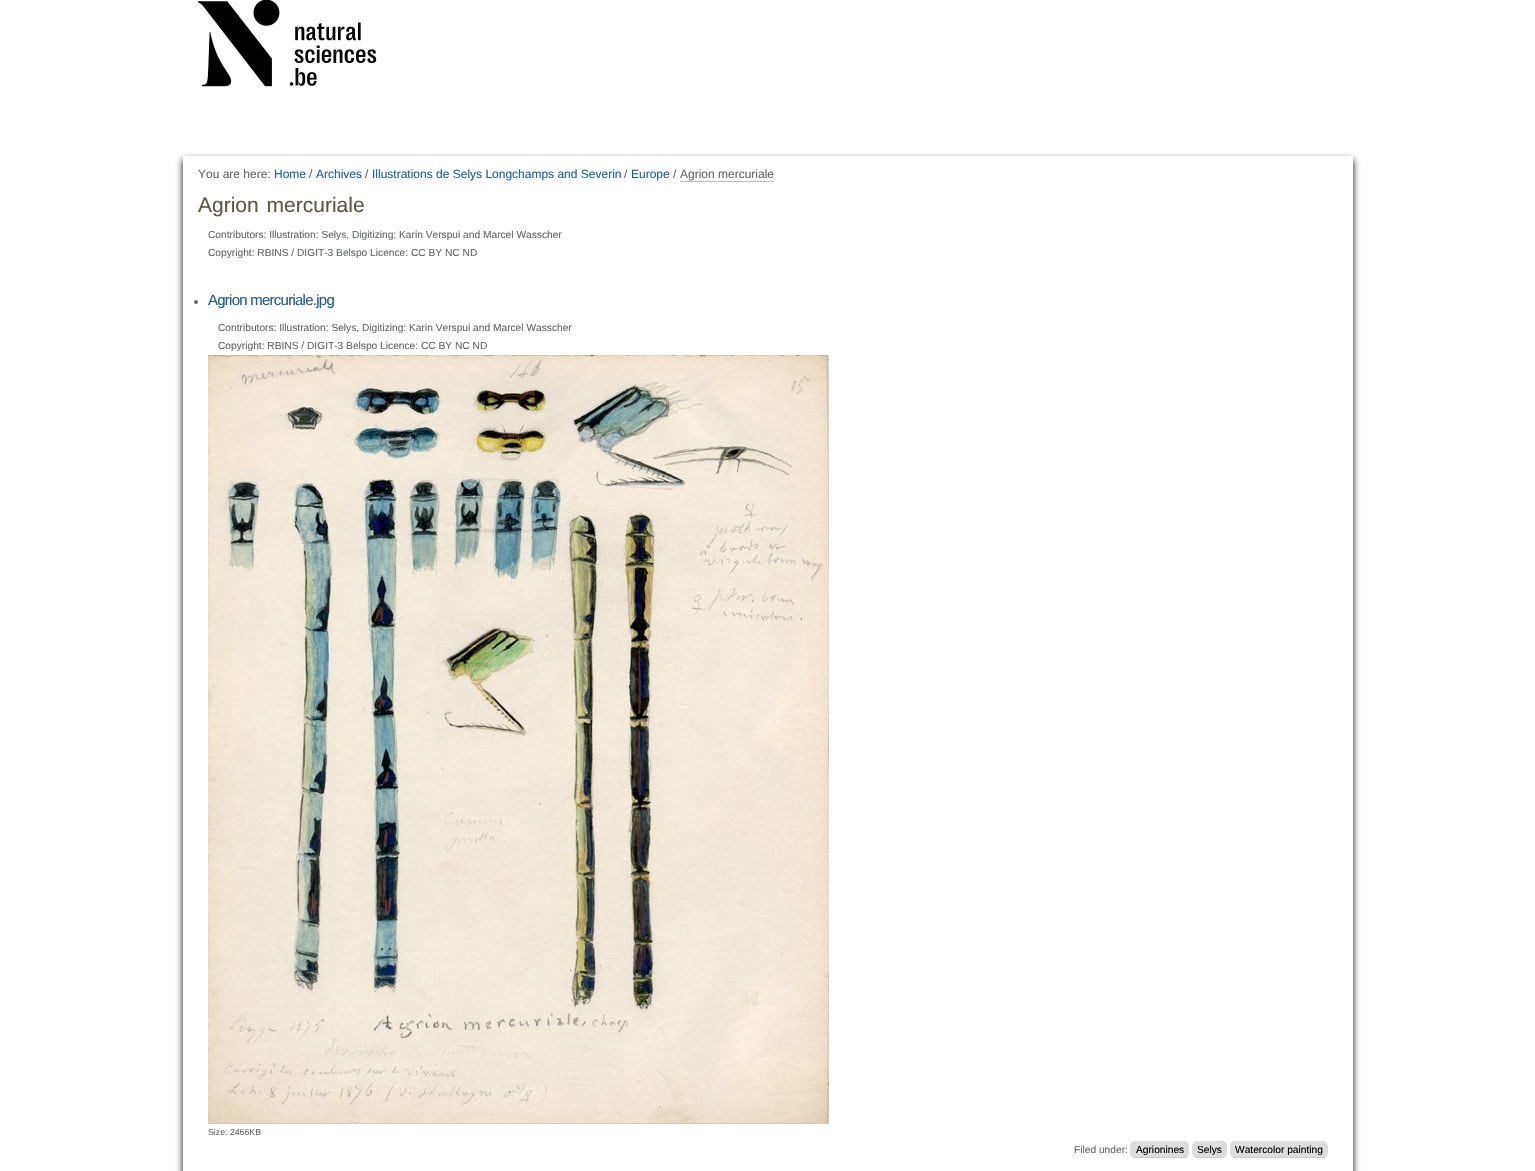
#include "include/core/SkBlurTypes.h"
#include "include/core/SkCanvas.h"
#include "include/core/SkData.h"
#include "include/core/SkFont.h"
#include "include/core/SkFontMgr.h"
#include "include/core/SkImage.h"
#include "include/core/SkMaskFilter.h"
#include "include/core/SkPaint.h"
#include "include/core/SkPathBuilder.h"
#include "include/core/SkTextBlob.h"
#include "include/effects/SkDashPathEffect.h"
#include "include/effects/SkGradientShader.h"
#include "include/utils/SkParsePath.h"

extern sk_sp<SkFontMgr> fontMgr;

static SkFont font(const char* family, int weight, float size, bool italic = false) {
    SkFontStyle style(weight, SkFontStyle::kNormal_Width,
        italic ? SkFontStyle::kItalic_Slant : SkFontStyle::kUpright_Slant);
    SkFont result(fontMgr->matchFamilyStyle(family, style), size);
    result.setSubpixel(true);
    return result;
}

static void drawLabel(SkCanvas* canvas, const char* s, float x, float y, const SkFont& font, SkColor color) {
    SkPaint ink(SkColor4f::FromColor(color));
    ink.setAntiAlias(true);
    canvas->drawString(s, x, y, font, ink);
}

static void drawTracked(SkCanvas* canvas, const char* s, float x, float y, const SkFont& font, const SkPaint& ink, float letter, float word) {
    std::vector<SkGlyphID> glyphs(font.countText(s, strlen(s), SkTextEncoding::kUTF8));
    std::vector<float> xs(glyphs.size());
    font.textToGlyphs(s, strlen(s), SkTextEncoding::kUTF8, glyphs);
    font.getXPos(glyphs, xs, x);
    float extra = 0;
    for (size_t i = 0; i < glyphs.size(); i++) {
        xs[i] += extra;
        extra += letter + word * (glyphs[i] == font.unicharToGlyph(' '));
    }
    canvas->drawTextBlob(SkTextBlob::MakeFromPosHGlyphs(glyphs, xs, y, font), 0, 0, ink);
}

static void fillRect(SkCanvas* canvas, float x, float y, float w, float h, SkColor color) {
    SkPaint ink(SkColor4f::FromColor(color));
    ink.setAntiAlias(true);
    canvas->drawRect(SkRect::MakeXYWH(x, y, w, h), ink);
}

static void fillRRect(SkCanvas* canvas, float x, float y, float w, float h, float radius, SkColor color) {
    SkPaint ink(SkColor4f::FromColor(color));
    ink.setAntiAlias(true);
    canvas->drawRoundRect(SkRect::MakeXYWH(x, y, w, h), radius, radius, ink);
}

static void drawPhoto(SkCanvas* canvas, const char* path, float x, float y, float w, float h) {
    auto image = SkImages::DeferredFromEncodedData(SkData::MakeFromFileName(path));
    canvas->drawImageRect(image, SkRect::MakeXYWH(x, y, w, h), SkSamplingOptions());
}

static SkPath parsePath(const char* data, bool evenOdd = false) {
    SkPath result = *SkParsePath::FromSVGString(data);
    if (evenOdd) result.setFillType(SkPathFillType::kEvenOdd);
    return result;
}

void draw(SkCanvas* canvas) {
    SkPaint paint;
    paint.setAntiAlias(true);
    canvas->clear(0xFFFFFFFF);
    drawPhoto(canvas, "assets/img1.png", 198, 0, 179, 87);
    canvas->save();
    canvas->clipPath(parsePath("M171 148H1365V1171H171ZM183 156H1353V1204H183Z", true), true);
    paint.setColor(0xFF000000);
    paint.setMaskFilter(SkMaskFilter::MakeBlur(kNormal_SkBlurStyle, 3.5f));
    canvas->drawRect(SkRect::MakeXYWH(183, 160, 1170, 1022), paint);
    paint.setMaskFilter(nullptr);
    canvas->restore();
    SkFont font1 = font("Liberation Sans", 400, 12);
    drawLabel(canvas, "You are here:", 198, 178, font1, 0xFF636466);
    drawLabel(canvas, "Home", 274, 178, font1, 0xFF205C90);
    drawLabel(canvas, "/", 309, 178, font1, 0xFF636466);
    drawLabel(canvas, "Archives", 316, 178, font1, 0xFF205C90);
    drawLabel(canvas, "/", 365, 178, font1, 0xFF636466);
    drawLabel(canvas, "Illustrations de Selys Longchamps and Severin", 372, 178, font1, 0xFF205C90);
    drawLabel(canvas, "/", 624, 178, font1, 0xFF636466);
    drawLabel(canvas, "Europe", 631, 178, font1, 0xFF205C90);
    drawLabel(canvas, "/", 673, 178, font1, 0xFF636466);
    drawLabel(canvas, "Agrion mercuriale", 680, 178, font1, 0xFF636466);
    fillRect(canvas, 680, 181, 94, 1, 0xFFBBBBBB);
    SkFont font2 = font("Liberation Sans", 400, 21);
    paint.setColor(0xFF5B5644);
    drawTracked(canvas, "Agrion mercuriale", 198, 212, font2, paint, 0, 2);
    SkFont font3 = font("Liberation Sans", 400, 10.2f);
    drawLabel(canvas, "Contributors: Illustration: Selys, Digitizing: Karin Verspui and Marcel Wasscher", 208, 238, font3, 0xFF636466);
    drawLabel(canvas, "Copyright: RBINS / DIGIT-3 Belspo Licence: CC BY NC ND", 208, 256, font3, 0xFF636466);
    paint.setColor(0xFF636466);
    canvas->drawCircle(196, 302, 2, paint);
    SkFont font4 = font("Liberation Sans", 400, 15);
    paint.setColor(0xFF205C90);
    drawTracked(canvas, "Agrion mercuriale.jpg", 208, 305, font4, paint, -0.75f, 0);
    drawLabel(canvas, "Contributors: Illustration: Selys, Digitizing: Karin Verspui and Marcel Wasscher", 218, 331, font3, 0xFF636466);
    drawLabel(canvas, "Copyright: RBINS / DIGIT-3 Belspo Licence: CC BY NC ND", 218, 349, font3, 0xFF636466);
    fillRect(canvas, 208, 1123, 621, 1, 0xFFCCCCCC);
    drawPhoto(canvas, "assets/img2.png", 208, 355, 621, 768);
    SkFont font5 = font("Liberation Sans", 400, 8.75f);
    drawLabel(canvas, "Size: 2466KB", 208, 1135, font5, 0xFF636466);
    drawLabel(canvas, "Filed under:", 1074, 1153, font3, 0xFF636466);
    fillRRect(canvas, 1130, 1141, 59, 17, 5, 0xFFDDDDDD);
    drawLabel(canvas, "Agrionines", 1136, 1153, font3, 0xFF000000);
    fillRect(canvas, 1133, 1157, 53, 1, 0xFFCCCCCC);
    fillRRect(canvas, 1192, 1141, 35, 17, 5, 0xFFDDDDDD);
    drawLabel(canvas, "Selys", 1197, 1153, font3, 0xFF000000);
    fillRect(canvas, 1195, 1157, 29, 1, 0xFFCCCCCC);
    fillRRect(canvas, 1230, 1141, 98, 17, 5, 0xFFDDDDDD);
    drawLabel(canvas, "Watercolor painting", 1235, 1153, font3, 0xFF000000);
    fillRect(canvas, 1233, 1157, 92, 1, 0xFFCCCCCC);
}
